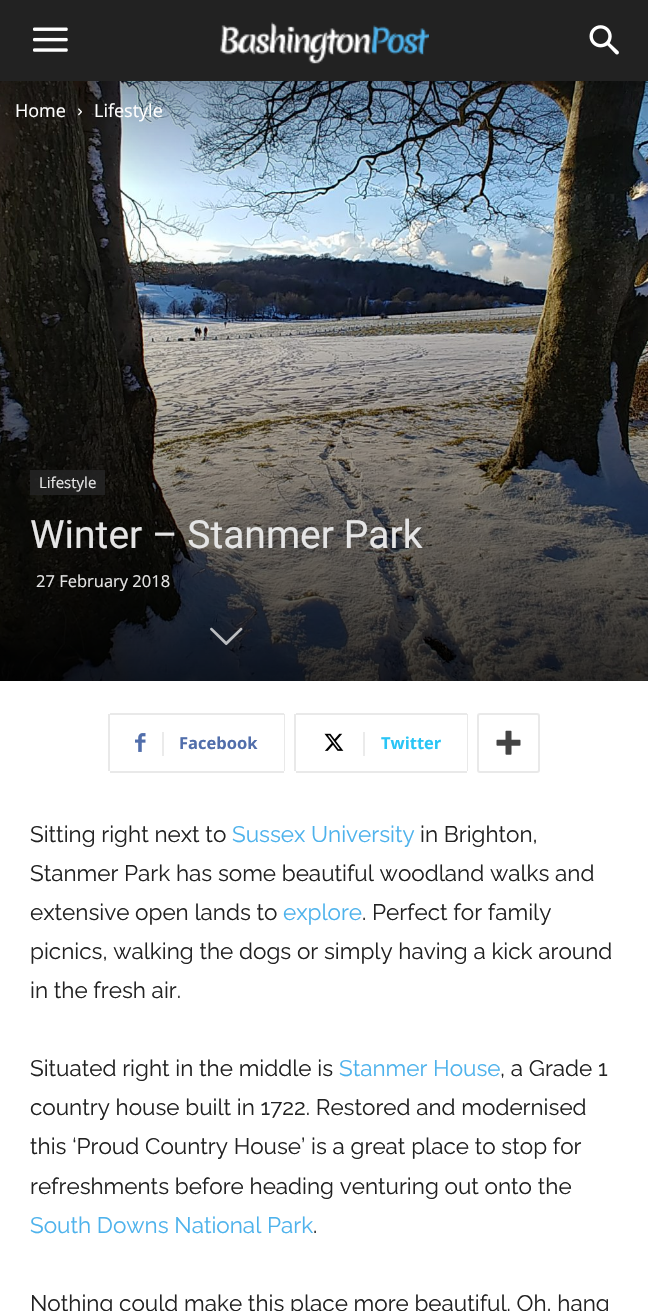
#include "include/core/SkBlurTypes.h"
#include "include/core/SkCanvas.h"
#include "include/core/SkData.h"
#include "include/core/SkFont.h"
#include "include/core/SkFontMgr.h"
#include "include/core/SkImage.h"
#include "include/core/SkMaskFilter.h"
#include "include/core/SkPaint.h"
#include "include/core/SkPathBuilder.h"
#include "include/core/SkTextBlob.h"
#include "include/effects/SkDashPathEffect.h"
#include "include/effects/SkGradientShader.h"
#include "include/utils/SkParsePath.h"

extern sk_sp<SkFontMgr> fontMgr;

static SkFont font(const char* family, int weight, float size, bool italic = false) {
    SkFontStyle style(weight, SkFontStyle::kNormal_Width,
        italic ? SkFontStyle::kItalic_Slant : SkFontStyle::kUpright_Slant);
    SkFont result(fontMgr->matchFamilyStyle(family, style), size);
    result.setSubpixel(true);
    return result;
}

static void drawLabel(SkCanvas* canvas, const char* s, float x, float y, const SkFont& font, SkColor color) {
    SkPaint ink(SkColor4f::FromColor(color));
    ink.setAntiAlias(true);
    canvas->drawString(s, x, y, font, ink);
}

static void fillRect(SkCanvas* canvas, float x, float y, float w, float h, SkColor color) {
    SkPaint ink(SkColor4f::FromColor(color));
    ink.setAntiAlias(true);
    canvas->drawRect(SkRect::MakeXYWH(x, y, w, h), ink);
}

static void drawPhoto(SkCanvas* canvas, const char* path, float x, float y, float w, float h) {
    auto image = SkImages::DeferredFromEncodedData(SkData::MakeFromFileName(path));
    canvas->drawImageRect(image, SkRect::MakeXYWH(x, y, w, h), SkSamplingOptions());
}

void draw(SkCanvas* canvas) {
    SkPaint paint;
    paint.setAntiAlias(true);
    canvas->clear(0xFFFFFFFF);
    fillRect(canvas, 0, 0, 648, 81, 0xFF222222);
    drawPhoto(canvas, "assets/img1.png", 33, 27, 35, 25);
    drawPhoto(canvas, "assets/img2.png", 220, 22, 209, 42);
    drawPhoto(canvas, "assets/img3.png", 589, 25, 30, 30);
    drawPhoto(canvas, "assets/img5.png", 0, 81, 648, 600);
    drawPhoto(canvas, "assets/img4.png", 87, 81, 561, 13);
    SkFont font1 = font("Open Sans", 400, 18);
    drawLabel(canvas, "Home", 15, 117, font1, 0xFFFFFFFF);
    drawPhoto(canvas, "assets/img6.png", 78, 108, 4, 8);
    drawLabel(canvas, "Lifestyle", 94, 117, font1, 0xFFFFFFFF);
    fillRect(canvas, 30, 470, 75, 25, 0xE0222222);
    SkFont font2 = font("Open Sans", 400, 15);
    drawLabel(canvas, "Lifestyle", 39, 488, font2, 0xFFE5E5E5);
    SkFont font3 = font("Roboto", 400, 39);
    drawLabel(canvas, "Winter – Stanmer Park", 30, 548, font3, 0xFFE5E5E5);
    SkFont font4 = font("Open Sans", 400, 16.5f);
    drawLabel(canvas, "27 February 2018", 36, 587, font4, 0xFFE5E5E5);
    drawPhoto(canvas, "assets/img7.png", 210, 627, 33, 19);
    fillRect(canvas, 108, 714, 2, 57, 0xFFE9E9E9);
    drawPhoto(canvas, "assets/img8.png", 135, 733, 11, 19);
    fillRect(canvas, 110, 713, 174, 2, 0xFFE9E9E9);
    fillRect(canvas, 284, 714, 1, 57, 0xFFE9E9E9);
    fillRect(canvas, 110, 771, 174, 2, 0xFFE9E9E9);
    fillRect(canvas, 162, 732, 2, 24, 0xFFEBEBEB);
    SkFont font5 = font("Open Sans", 700, 16.5f);
    drawLabel(canvas, "Facebook", 179, 749, font5, 0xFF516EAB);
    fillRect(canvas, 294, 714, 2, 57, 0xFFE9E9E9);
    drawPhoto(canvas, "assets/img9.png", 324, 733, 20, 18);
    fillRect(canvas, 296, 713, 171, 2, 0xFFE9E9E9);
    fillRect(canvas, 467, 714, 1, 57, 0xFFE9E9E9);
    fillRect(canvas, 296, 771, 171, 2, 0xFFE9E9E9);
    fillRect(canvas, 363, 732, 2, 24, 0xFFEBEBEB);
    drawLabel(canvas, "Twitter", 381, 749, font5, 0xFF29C5F6);
    paint.setStroke(true);
    paint.setStrokeWidth(2);
    paint.setColor(0xFFE9E9E9);
    canvas->drawRoundRect(SkRect::MakeXYWH(478, 714, 61, 58), 2, 2, paint);
    drawPhoto(canvas, "assets/img10.png", 496, 730, 25, 25);
    SkFont font6 = font("Raleway", 100, 22.5f);
    drawLabel(canvas, "Sitting right next to", 30, 842, font6, 0xFF222222);
    drawLabel(canvas, "Sussex University", 232, 842, font6, 0xFF4DB2EC);
    drawLabel(canvas, "in Brighton,", 420, 842, font6, 0xFF222222);
    drawLabel(canvas, "Stanmer Park has some beautiful woodland walks and", 30, 881, font6, 0xFF222222);
    drawLabel(canvas, "extensive open lands to", 30, 920, font6, 0xFF222222);
    drawLabel(canvas, "explore", 283, 920, font6, 0xFF4DB2EC);
    drawLabel(canvas, ". Perfect for family", 362, 920, font6, 0xFF222222);
    drawLabel(canvas, "picnics, walking the dogs or simply having a kick around", 30, 959, font6, 0xFF222222);
    drawLabel(canvas, "in the fresh air.", 30, 998, font6, 0xFF222222);
    drawLabel(canvas, "Situated right in the middle is", 30, 1076, font6, 0xFF222222);
    drawLabel(canvas, "Stanmer House", 339, 1076, font6, 0xFF4DB2EC);
    drawLabel(canvas, ", a Grade 1", 500, 1076, font6, 0xFF222222);
    drawLabel(canvas, "country house built in 1722. Restored and modernised", 30, 1115, font6, 0xFF222222);
    drawLabel(canvas, "this ‘Proud Country House’ is a great place to stop for", 30, 1154, font6, 0xFF222222);
    drawLabel(canvas, "refreshments before heading venturing out onto the", 30, 1194, font6, 0xFF222222);
    drawLabel(canvas, "South Downs National Park", 30, 1233, font6, 0xFF4DB2EC);
    drawLabel(canvas, ".", 313, 1233, font6, 0xFF222222);
    drawLabel(canvas, "Nothing could make this place more beautiful. Oh, hang", 30, 1311, font6, 0xFF222222);
}
